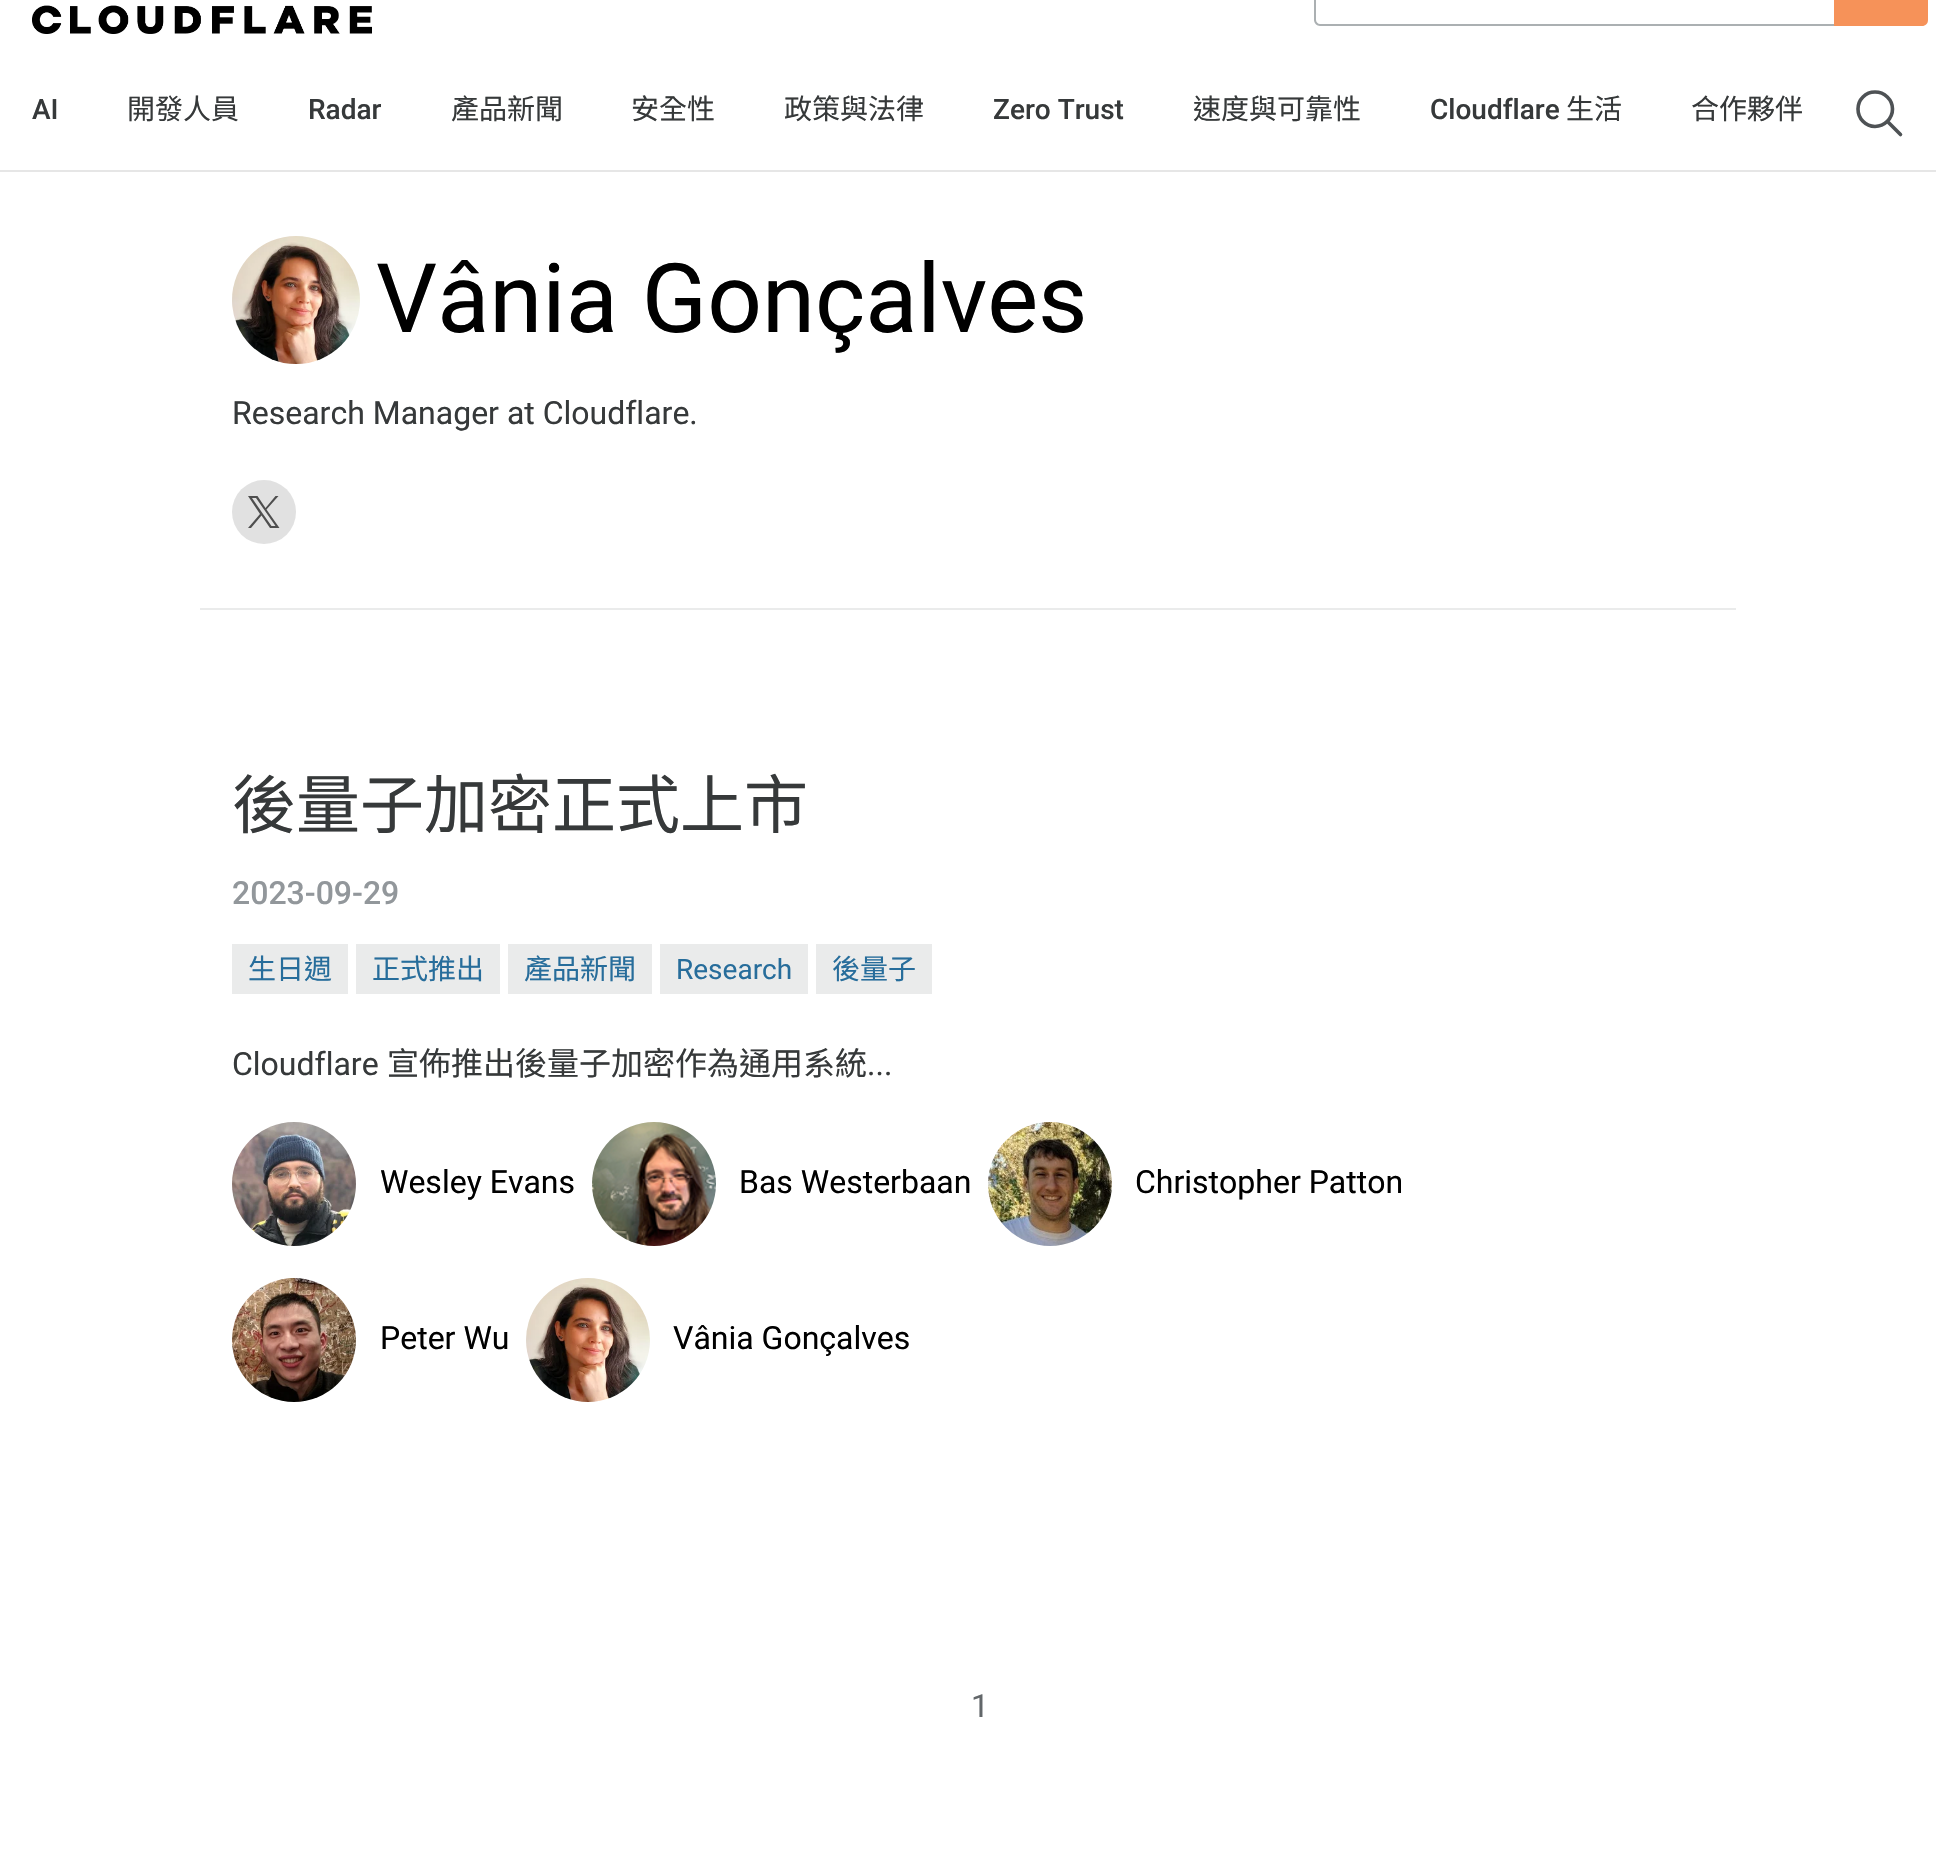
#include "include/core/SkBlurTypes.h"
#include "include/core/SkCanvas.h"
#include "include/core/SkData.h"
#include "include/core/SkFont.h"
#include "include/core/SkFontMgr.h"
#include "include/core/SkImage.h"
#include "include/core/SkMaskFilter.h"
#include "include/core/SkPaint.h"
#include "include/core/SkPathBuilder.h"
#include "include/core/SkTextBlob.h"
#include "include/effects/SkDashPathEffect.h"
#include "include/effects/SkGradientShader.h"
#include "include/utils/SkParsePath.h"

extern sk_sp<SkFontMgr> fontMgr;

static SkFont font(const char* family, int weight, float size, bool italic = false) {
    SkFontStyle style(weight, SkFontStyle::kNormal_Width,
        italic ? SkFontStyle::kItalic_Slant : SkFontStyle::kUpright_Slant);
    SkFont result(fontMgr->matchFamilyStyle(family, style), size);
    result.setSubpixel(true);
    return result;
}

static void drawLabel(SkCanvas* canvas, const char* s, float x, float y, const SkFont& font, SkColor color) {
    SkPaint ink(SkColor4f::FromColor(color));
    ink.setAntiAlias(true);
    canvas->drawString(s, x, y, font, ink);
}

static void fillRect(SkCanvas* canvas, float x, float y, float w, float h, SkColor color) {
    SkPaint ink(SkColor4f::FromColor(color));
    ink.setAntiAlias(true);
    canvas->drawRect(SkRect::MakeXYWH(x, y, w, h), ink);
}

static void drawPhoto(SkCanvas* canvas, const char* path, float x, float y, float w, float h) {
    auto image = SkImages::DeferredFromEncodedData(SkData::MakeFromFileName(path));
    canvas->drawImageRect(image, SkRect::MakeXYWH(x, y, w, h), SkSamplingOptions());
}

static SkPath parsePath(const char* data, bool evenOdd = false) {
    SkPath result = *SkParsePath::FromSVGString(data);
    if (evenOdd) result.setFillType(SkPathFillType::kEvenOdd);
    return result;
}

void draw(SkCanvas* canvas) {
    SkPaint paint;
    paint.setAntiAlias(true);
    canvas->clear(0xFFFFFFFF);
    drawPhoto(canvas, "assets/img1.png", 32, 5, 340, 29);
    paint.setColor(0xFFABB0B2);
    canvas->drawPath(parsePath("M1320-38H1834V26H1320C1317 26 1314 23 1314 20V-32C1314-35 1317-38 1320-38ZM1320-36H1834V24H1320C1318 24 1316 22 1316 20V-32C1316-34 1318-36 1320-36Z", true), paint);
    paint.setColor(0xFFF69259);
    canvas->drawPath(parsePath("M1834-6H1922C1925.5-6 1928-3.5 1928 0V20C1928 23.5 1925.5 26 1922 26H1834Z"), paint);
    fillRect(canvas, 0, 170, 1936, 2, 0xFFE6E6E6);
    SkFont font1 = font("Roboto", 500, 28);
    drawLabel(canvas, "AI", 32, 119, font1, 0xFF36393A);
    SkFont font2 = font("Noto Sans CJK TC", 400, 28);
    drawLabel(canvas, "開發人員", 127, 119, font2, 0xFF36393A);
    drawLabel(canvas, "Radar", 308, 119, font1, 0xFF36393A);
    drawLabel(canvas, "產品新聞", 451, 119, font2, 0xFF36393A);
    drawLabel(canvas, "安全性", 631, 119, font2, 0xFF36393A);
    drawLabel(canvas, "政策與法律", 784, 119, font2, 0xFF36393A);
    drawLabel(canvas, "Zero Trust", 993, 119, font1, 0xFF36393A);
    drawLabel(canvas, "速度與可靠性", 1193, 119, font2, 0xFF36393A);
    drawLabel(canvas, "Cloudflare", 1430, 119, font1, 0xFF36393A);
    drawLabel(canvas, "生活", 1566, 119, font2, 0xFF36393A);
    drawLabel(canvas, "合作夥伴", 1691, 119, font2, 0xFF36393A);
    paint.setStroke(true);
    paint.setStrokeWidth(3.6f);
    paint.setStrokeCap(SkPaint::kRound_Cap);
    paint.setStrokeJoin(SkPaint::kRound_Join);
    paint.setColor(0xFF4E5255);
    canvas->drawPath(parsePath("M1875 126.5C1884.5 126.5 1892.5 118.5 1892.5 109C1892.5 99.5 1884.5 92 1875 92C1865.5 92 1858 99.5 1858 109C1858 118.5 1865.5 126.5 1875 126.5ZM1888 122L1900.5 134.5"), paint);
    fillRect(canvas, 200, 608, 1536, 2, 0xFFEAEBEB);
    drawPhoto(canvas, "assets/img2.png", 232, 236, 128, 128);
    SkFont font3 = font("Roboto", 400, 96);
    drawLabel(canvas, "Vânia Gonçalves", 376, 332, font3, 0xFF000000);
    SkFont font4 = font("Roboto", 400, 32);
    drawLabel(canvas, "Research Manager at Cloudflare.", 232, 424, font4, 0xFF36393A);
    paint.setStroke(false);
    paint.setColor(0xFFE1E1E1);
    canvas->drawCircle(264, 512, 32, paint);
    paint.setColor(0xFF4E4E4E);
    canvas->drawPath(parsePath("M266.5 509.5L278.5 496H275.5L265.5 508L257.5 496H248L260 514L248 528H251L261.5 515.5L270 528H279.5ZM263 514L252 498H256L275.5 526H271.5Z"), paint);
    SkFont font5 = font("Noto Sans CJK TC", 400, 64);
    drawLabel(canvas, "後量子加密正式上市", 232, 828, font5, 0xFF36393A);
    SkFont font6 = font("Roboto", 500, 32);
    drawLabel(canvas, "2023-09-29", 232, 904, font6, 0xFF92979B);
    fillRect(canvas, 232, 944, 116, 50, 0xFFEAEBEB);
    drawLabel(canvas, "生日週", 248, 979, font2, 0xFF276D9B);
    fillRect(canvas, 356, 944, 144, 50, 0xFFEAEBEB);
    drawLabel(canvas, "正式推出", 372, 979, font2, 0xFF276D9B);
    fillRect(canvas, 508, 944, 144, 50, 0xFFEAEBEB);
    drawLabel(canvas, "產品新聞", 524, 979, font2, 0xFF276D9B);
    fillRect(canvas, 660, 944, 148, 50, 0xFFEAEBEB);
    SkFont font7 = font("Roboto", 400, 28);
    drawLabel(canvas, "Research", 676, 979, font7, 0xFF276D9B);
    fillRect(canvas, 816, 944, 116, 50, 0xFFEAEBEB);
    drawLabel(canvas, "後量子", 832, 979, font2, 0xFF276D9B);
    drawLabel(canvas, "Cloudflare", 232, 1075, font4, 0xFF36393A);
    SkFont font8 = font("Noto Sans CJK TC", 400, 32);
    drawLabel(canvas, "宣佈推出後量子加密作為通用系統", 387, 1075, font8, 0xFF36393A);
    drawLabel(canvas, "...", 867, 1075, font4, 0xFF36393A);
    drawPhoto(canvas, "assets/img3.png", 232, 1122, 124, 124);
    drawLabel(canvas, "Wesley Evans", 380, 1193, font4, 0xFF000000);
    drawPhoto(canvas, "assets/img4.png", 592, 1122, 124, 124);
    drawLabel(canvas, "Bas Westerbaan", 739, 1193, font4, 0xFF000000);
    drawPhoto(canvas, "assets/img5.png", 988, 1122, 124, 124);
    drawLabel(canvas, "Christopher Patton", 1135, 1193, font4, 0xFF000000);
    drawPhoto(canvas, "assets/img6.png", 232, 1278, 124, 124);
    drawLabel(canvas, "Peter Wu", 380, 1349, font4, 0xFF000000);
    drawPhoto(canvas, "assets/img7.png", 526, 1278, 124, 124);
    drawLabel(canvas, "Vânia Gonçalves", 673, 1349, font4, 0xFF000000);
    drawLabel(canvas, "1", 971, 1717, font4, 0xFF62676A);
}
